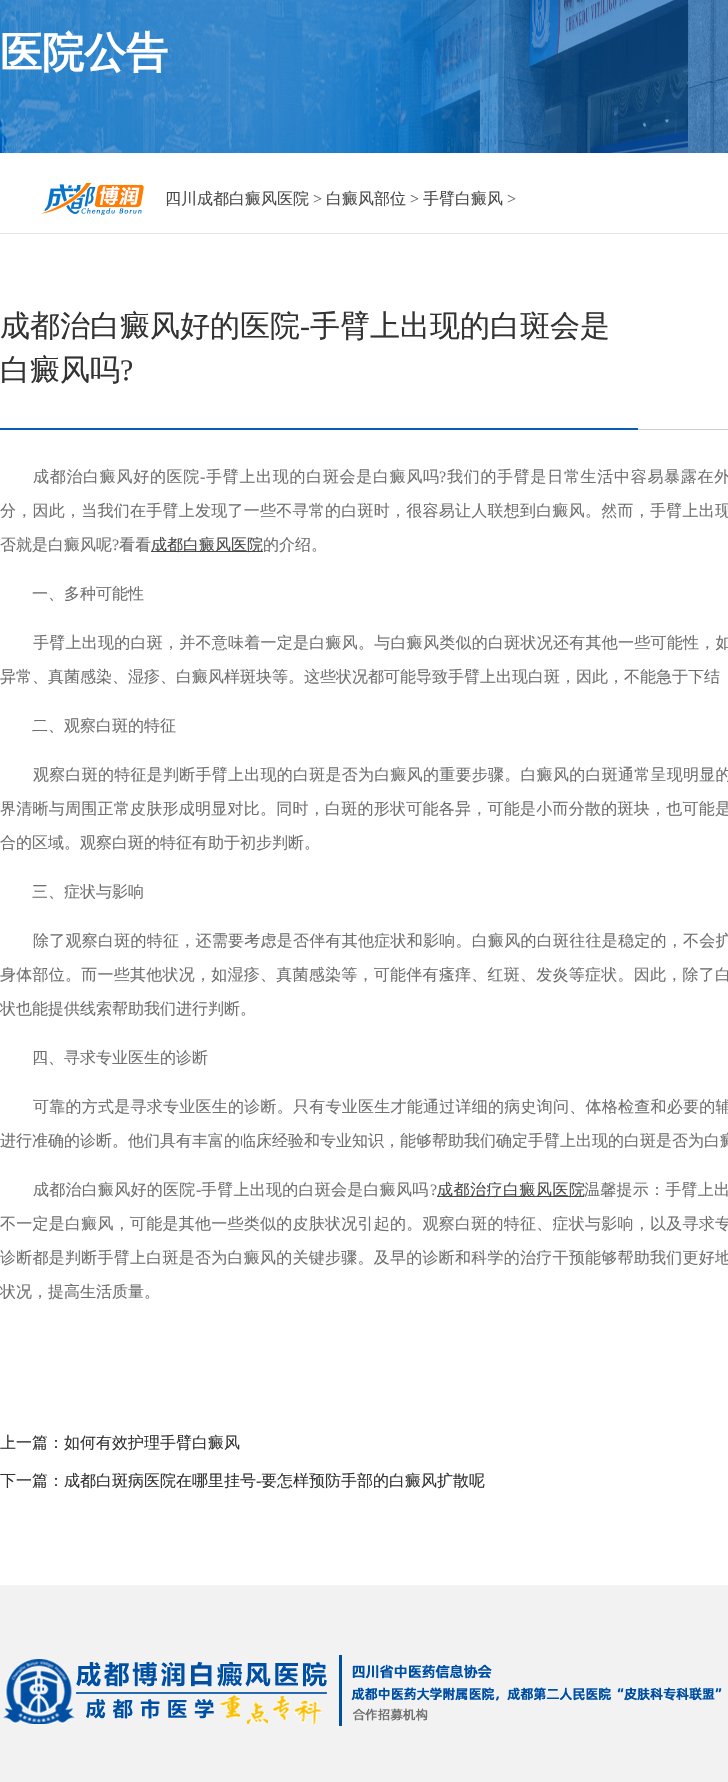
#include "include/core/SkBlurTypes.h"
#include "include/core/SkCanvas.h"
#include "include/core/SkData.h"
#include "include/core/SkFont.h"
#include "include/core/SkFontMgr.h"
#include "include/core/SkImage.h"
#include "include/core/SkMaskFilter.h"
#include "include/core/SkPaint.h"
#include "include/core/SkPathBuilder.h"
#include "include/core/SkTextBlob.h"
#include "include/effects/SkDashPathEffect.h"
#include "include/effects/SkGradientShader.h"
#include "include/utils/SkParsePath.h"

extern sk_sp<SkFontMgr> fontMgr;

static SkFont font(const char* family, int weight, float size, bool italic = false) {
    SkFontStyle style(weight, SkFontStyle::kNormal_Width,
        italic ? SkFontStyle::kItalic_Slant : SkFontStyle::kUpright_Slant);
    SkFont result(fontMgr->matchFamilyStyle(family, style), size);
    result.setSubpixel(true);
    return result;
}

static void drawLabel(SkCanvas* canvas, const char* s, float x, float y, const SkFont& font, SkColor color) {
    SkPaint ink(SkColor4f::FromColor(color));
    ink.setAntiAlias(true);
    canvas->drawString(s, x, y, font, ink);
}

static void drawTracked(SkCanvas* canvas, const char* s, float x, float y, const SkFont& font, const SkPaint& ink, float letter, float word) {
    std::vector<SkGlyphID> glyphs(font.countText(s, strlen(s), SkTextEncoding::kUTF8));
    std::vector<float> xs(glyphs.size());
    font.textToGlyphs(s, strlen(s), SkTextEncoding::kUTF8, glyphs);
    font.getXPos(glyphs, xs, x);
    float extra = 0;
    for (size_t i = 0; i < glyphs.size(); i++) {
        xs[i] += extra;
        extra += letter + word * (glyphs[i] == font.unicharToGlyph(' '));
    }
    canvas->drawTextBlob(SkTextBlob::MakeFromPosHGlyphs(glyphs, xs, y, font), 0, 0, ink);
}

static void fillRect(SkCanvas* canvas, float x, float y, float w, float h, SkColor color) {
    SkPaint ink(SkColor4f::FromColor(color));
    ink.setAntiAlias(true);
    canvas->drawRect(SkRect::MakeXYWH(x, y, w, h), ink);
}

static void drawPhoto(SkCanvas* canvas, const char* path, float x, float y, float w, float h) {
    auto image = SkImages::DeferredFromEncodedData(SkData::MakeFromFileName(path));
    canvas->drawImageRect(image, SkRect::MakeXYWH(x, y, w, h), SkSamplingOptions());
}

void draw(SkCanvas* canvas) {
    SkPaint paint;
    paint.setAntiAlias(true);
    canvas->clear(0xFFFFFFFF);
    drawPhoto(canvas, "assets/img1.png", 0, 0, 728, 153);
    SkFont font1 = font("WenQuanYi Zen Hei", 700, 42);
    drawLabel(canvas, "医院公告", 0, 67, font1, 0xFFFFFFFF);
    fillRect(canvas, 0, 233, 728, 1, 0xFFE4E4E4);
    drawPhoto(canvas, "assets/img2.png", 41, 183, 103, 32);
    SkFont font2 = font("WenQuanYi Zen Hei", 500, 16);
    drawLabel(canvas, "四川成都白癜风医院", 165, 204, font2, 0xFF4A4A4A);
    SkFont font3 = font("Liberation Serif", 400, 16);
    drawLabel(canvas, ">", 313, 204, font3, 0xFF666666);
    drawLabel(canvas, "白癜风部位", 326, 204, font2, 0xFF4A4A4A);
    drawLabel(canvas, ">", 410, 204, font3, 0xFF666666);
    drawLabel(canvas, "手臂白癜风", 423, 204, font2, 0xFF4A4A4A);
    drawLabel(canvas, ">", 507, 204, font3, 0xFF666666);
    fillRect(canvas, 638, 429, 90, 1, 0xFFCCCCCC);
    fillRect(canvas, 0, 428, 638, 2, 0xFF075DB8);
    SkFont font4 = font("WenQuanYi Zen Hei", 500, 30);
    drawLabel(canvas, "成都治白癜风好的医院", 0, 336, font4, 0xFF333333);
    SkFont font5 = font("Liberation Serif", 400, 30);
    drawLabel(canvas, "-", 300, 336, font5, 0xFF333333);
    drawLabel(canvas, "手臂上出现的白斑会是", 310, 336, font4, 0xFF333333);
    drawLabel(canvas, "白癜风吗", 0, 380, font4, 0xFF333333);
    drawLabel(canvas, "?", 120, 380, font5, 0xFF333333);
    paint.setColor(0xFF707070);
    drawTracked(canvas, "成都治白癜风好的医院", 33, 482, font2, paint, 0.7f, 0);
    drawTracked(canvas, "-", 200, 482, font3, paint, 0.7f, 0);
    drawTracked(canvas, "手臂上出现的白斑会是白癜风吗", 206, 482, font2, paint, 0.7f, 0);
    drawTracked(canvas, "?", 439, 482, font3, paint, 0.7f, 0);
    drawTracked(canvas, "我们的手臂是日常生活中容易暴露在外", 447, 482, font2, paint, 0.7f, 0);
    drawTracked(canvas, "分，因此，当我们在手臂上发现了一些不寻常的白斑时，很容易让人联想到白癜风。然而，手臂上出现", 0, 516, font2, paint, 0.25f, 0);
    drawLabel(canvas, "否就是白癜风呢", 0, 550, font2, 0xFF707070);
    drawLabel(canvas, "?", 112, 550, font3, 0xFF707070);
    drawLabel(canvas, "看看", 119, 550, font2, 0xFF707070);
    fillRect(canvas, 151, 551, 112, 1, 0xFF4A4A4A);
    drawLabel(canvas, "成都白癜风医院", 151, 550, font2, 0xFF4A4A4A);
    drawLabel(canvas, "的介绍。", 263, 550, font2, 0xFF707070);
    drawLabel(canvas, "一、多种可能性", 32, 599, font2, 0xFF707070);
    drawTracked(canvas, "手臂上出现的白斑，并不意味着一定是白癜风。与白癜风类似的白斑状况还有其他一些可能性，如", 33, 648, font2, paint, 0.25f, 0);
    drawLabel(canvas, "异常、真菌感染、湿疹、白癜风样斑块等。这些状况都可能导致手臂上出现白斑，因此，不能急于下结", 0, 682, font2, 0xFF707070);
    drawLabel(canvas, "二、观察白斑的特征", 32, 731, font2, 0xFF707070);
    drawTracked(canvas, "观察白斑的特征是判断手臂上出现的白斑是否为白癜风的重要步骤。白癜风的白斑通常呈现明显的", 33, 780, font2, paint, 0.25f, 0);
    drawTracked(canvas, "界清晰与周围正常皮肤形成明显对比。同时，白斑的形状可能各异，可能是小而分散的斑块，也可能是", 0, 814, font2, paint, 0.25f, 0);
    drawLabel(canvas, "合的区域。观察白斑的特征有助于初步判断。", 0, 848, font2, 0xFF707070);
    drawLabel(canvas, "三、症状与影响", 32, 897, font2, 0xFF707070);
    drawTracked(canvas, "除了观察白斑的特征，还需要考虑是否伴有其他症状和影响。白癜风的白斑往往是稳定的，不会扩", 33, 946, font2, paint, 0.25f, 0);
    drawTracked(canvas, "身体部位。而一些其他状况，如湿疹、真菌感染等，可能伴有瘙痒、红斑、发炎等症状。因此，除了白", 0, 980, font2, paint, 0.25f, 0);
    drawLabel(canvas, "状也能提供线索帮助我们进行判断。", 0, 1014, font2, 0xFF707070);
    drawLabel(canvas, "四、寻求专业医生的诊断", 32, 1063, font2, 0xFF707070);
    drawTracked(canvas, "可靠的方式是寻求专业医生的诊断。只有专业医生才能通过详细的病史询问、体格检查和必要的辅", 33, 1112, font2, paint, 0.25f, 0);
    drawLabel(canvas, "进行准确的诊断。他们具有丰富的临床经验和专业知识，能够帮助我们确定手臂上出现的白斑是否为白癜", 0, 1146, font2, 0xFF707070);
    drawTracked(canvas, "成都治白癜风好的医院", 33, 1195, font2, paint, 0.25f, 0);
    drawTracked(canvas, "-", 196, 1195, font3, paint, 0.25f, 0);
    drawTracked(canvas, "手臂上出现的白斑会是白癜风吗", 201, 1195, font2, paint, 0.25f, 0);
    drawTracked(canvas, "?", 430, 1195, font3, paint, 0.25f, 0);
    fillRect(canvas, 437, 1196, 147, 1, 0xFF4A4A4A);
    paint.setColor(0xFF4A4A4A);
    drawTracked(canvas, "成都治疗白癜风医院", 437, 1195, font2, paint, 0.5f, 0);
    paint.setColor(0xFF707070);
    drawTracked(canvas, "温馨提示：手臂上出", 584, 1195, font2, paint, 0.25f, 0);
    drawTracked(canvas, "不一定是白癜风，可能是其他一些类似的皮肤状况引起的。观察白斑的特征、症状与影响，以及寻求专", 0, 1229, font2, paint, 0.25f, 0);
    drawTracked(canvas, "诊断都是判断手臂上白斑是否为白癜风的关键步骤。及早的诊断和科学的治疗干预能够帮助我们更好地", 0, 1263, font2, paint, 0.25f, 0);
    drawLabel(canvas, "状况，提高生活质量。", 0, 1297, font2, 0xFF707070);
    drawLabel(canvas, "上一篇：如何有效护理手臂白癜风", 0, 1448, font2, 0xFF333333);
    drawLabel(canvas, "下一篇：成都白斑病医院在哪里挂号", 0, 1486, font2, 0xFF333333);
    drawLabel(canvas, "-", 256, 1486, font3, 0xFF333333);
    drawLabel(canvas, "要怎样预防手部的白癜风扩散呢", 261, 1486, font2, 0xFF333333);
    fillRect(canvas, 0, 1585, 728, 197, 0xFFF2F2F2);
    drawPhoto(canvas, "assets/img3.png", 2, 1655, 720, 71);
}
